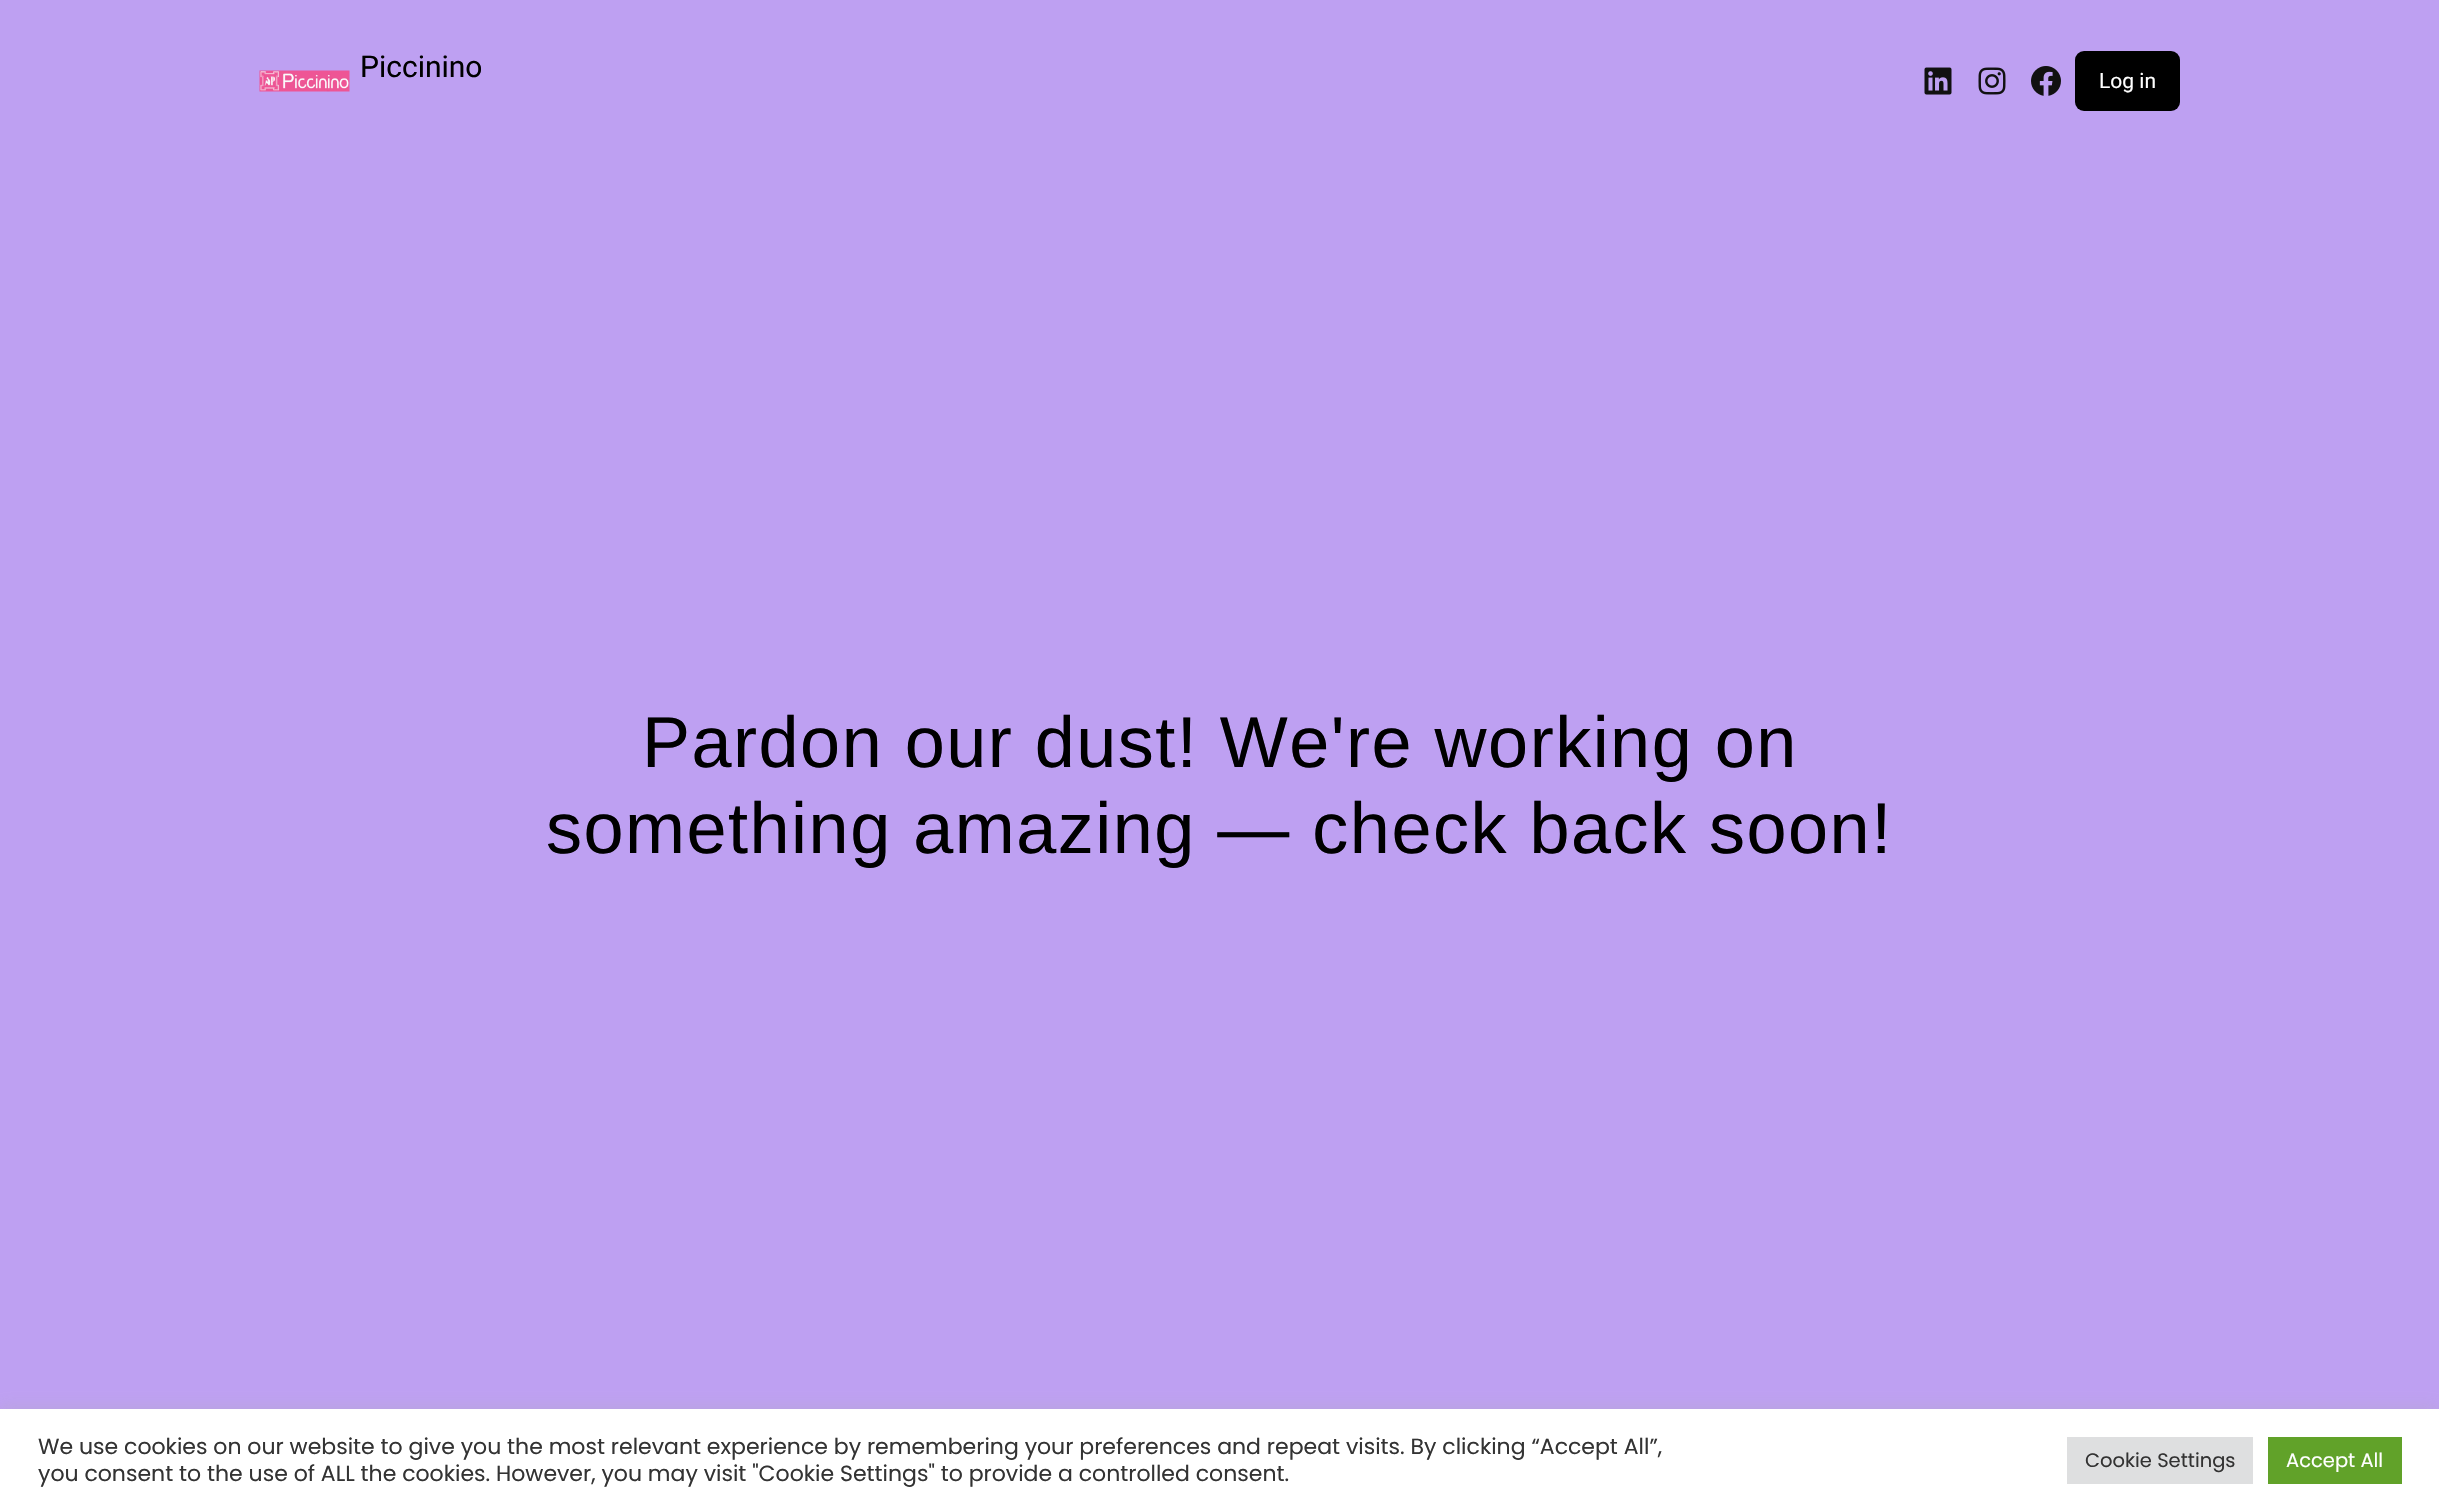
#include "include/core/SkBlurTypes.h"
#include "include/core/SkCanvas.h"
#include "include/core/SkData.h"
#include "include/core/SkFont.h"
#include "include/core/SkFontMgr.h"
#include "include/core/SkImage.h"
#include "include/core/SkMaskFilter.h"
#include "include/core/SkPaint.h"
#include "include/core/SkPathBuilder.h"
#include "include/core/SkTextBlob.h"
#include "include/effects/SkDashPathEffect.h"
#include "include/effects/SkGradientShader.h"
#include "include/utils/SkParsePath.h"

extern sk_sp<SkFontMgr> fontMgr;

static SkFont font(const char* family, int weight, float size, bool italic = false) {
    SkFontStyle style(weight, SkFontStyle::kNormal_Width,
        italic ? SkFontStyle::kItalic_Slant : SkFontStyle::kUpright_Slant);
    SkFont result(fontMgr->matchFamilyStyle(family, style), size);
    result.setSubpixel(true);
    return result;
}

static void drawLabel(SkCanvas* canvas, const char* s, float x, float y, const SkFont& font, SkColor color) {
    SkPaint ink(SkColor4f::FromColor(color));
    ink.setAntiAlias(true);
    canvas->drawString(s, x, y, font, ink);
}

static void drawTracked(SkCanvas* canvas, const char* s, float x, float y, const SkFont& font, const SkPaint& ink, float letter, float word) {
    std::vector<SkGlyphID> glyphs(font.countText(s, strlen(s), SkTextEncoding::kUTF8));
    std::vector<float> xs(glyphs.size());
    font.textToGlyphs(s, strlen(s), SkTextEncoding::kUTF8, glyphs);
    font.getXPos(glyphs, xs, x);
    float extra = 0;
    for (size_t i = 0; i < glyphs.size(); i++) {
        xs[i] += extra;
        extra += letter + word * (glyphs[i] == font.unicharToGlyph(' '));
    }
    canvas->drawTextBlob(SkTextBlob::MakeFromPosHGlyphs(glyphs, xs, y, font), 0, 0, ink);
}

static void fillRect(SkCanvas* canvas, float x, float y, float w, float h, SkColor color) {
    SkPaint ink(SkColor4f::FromColor(color));
    ink.setAntiAlias(true);
    canvas->drawRect(SkRect::MakeXYWH(x, y, w, h), ink);
}

static void fillRRect(SkCanvas* canvas, float x, float y, float w, float h, float radius, SkColor color) {
    SkPaint ink(SkColor4f::FromColor(color));
    ink.setAntiAlias(true);
    canvas->drawRoundRect(SkRect::MakeXYWH(x, y, w, h), radius, radius, ink);
}

static void drawPhoto(SkCanvas* canvas, const char* path, float x, float y, float w, float h) {
    auto image = SkImages::DeferredFromEncodedData(SkData::MakeFromFileName(path));
    canvas->drawImageRect(image, SkRect::MakeXYWH(x, y, w, h), SkSamplingOptions());
}

void draw(SkCanvas* canvas) {
    SkPaint paint;
    paint.setAntiAlias(true);
    canvas->clear(0xFFBEA0F2);
    SkFont font1 = font("Roboto", 400, 30);
    drawLabel(canvas, "Piccinino", 360, 77, font1, 0xFF000000);
    drawPhoto(canvas, "assets/img1.png", 259, 70, 91, 22);
    drawPhoto(canvas, "assets/img2.png", 1924, 67, 28, 28);
    drawPhoto(canvas, "assets/img3.png", 1978, 67, 28, 28);
    drawPhoto(canvas, "assets/img4.png", 2031, 66, 30, 30);
    fillRRect(canvas, 2075, 51, 105, 60, 9, 0xFF000000);
    SkFont font2 = font("Roboto", 400, 21);
    drawLabel(canvas, "Log in", 2099, 88, font2, 0xFFFFFFFF);
    SkFont font3 = font("Liberation Sans", 400, 72);
    paint.setColor(0xFF000000);
    drawTracked(canvas, "Pardon our dust! We're working on", 642, 767, font3, paint, 1.5f, 0);
    drawTracked(canvas, "something amazing — check back soon!", 546, 853, font3, paint, 1.5f, 0);
    paint.setColor(0x4DACABAB);
    paint.setMaskFilter(SkMaskFilter::MakeBlur(kNormal_SkBlurStyle, 7.5f));
    canvas->drawRect(SkRect::MakeXYWH(0, 1407, 2439, 104), paint);
    paint.setMaskFilter(nullptr);
    fillRect(canvas, 0, 1409, 2439, 103, 0xFFFFFFFF);
    SkFont font4 = font("Poppins", 400, 22);
    drawLabel(canvas, "We use cookies on our website to give you the most relevant experience by remembering your preferences and repeat visits. By clicking “Accept All”,", 38, 1454, font4, 0xFF333333);
    drawLabel(canvas, "you consent to the use of ALL the cookies. However, you may visit \"Cookie Settings\" to provide a controlled consent.", 38, 1481, font4, 0xFF333333);
    fillRect(canvas, 2067, 1437, 186, 47, 0xFFDEDFE0);
    SkFont font5 = font("Poppins", 400, 19.5f);
    drawLabel(canvas, "Cookie Settings", 2085, 1467, font5, 0xFF333333);
    fillRect(canvas, 2268, 1437, 134, 47, 0xFF61A229);
    drawLabel(canvas, "Accept All", 2286, 1467, font5, 0xFFFFFFFF);
}
